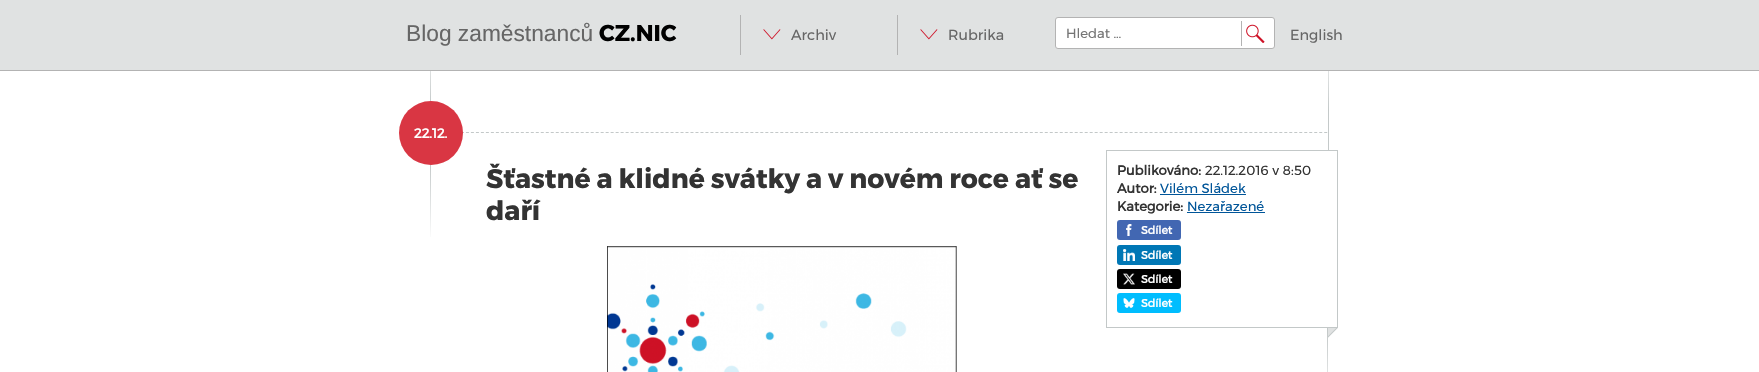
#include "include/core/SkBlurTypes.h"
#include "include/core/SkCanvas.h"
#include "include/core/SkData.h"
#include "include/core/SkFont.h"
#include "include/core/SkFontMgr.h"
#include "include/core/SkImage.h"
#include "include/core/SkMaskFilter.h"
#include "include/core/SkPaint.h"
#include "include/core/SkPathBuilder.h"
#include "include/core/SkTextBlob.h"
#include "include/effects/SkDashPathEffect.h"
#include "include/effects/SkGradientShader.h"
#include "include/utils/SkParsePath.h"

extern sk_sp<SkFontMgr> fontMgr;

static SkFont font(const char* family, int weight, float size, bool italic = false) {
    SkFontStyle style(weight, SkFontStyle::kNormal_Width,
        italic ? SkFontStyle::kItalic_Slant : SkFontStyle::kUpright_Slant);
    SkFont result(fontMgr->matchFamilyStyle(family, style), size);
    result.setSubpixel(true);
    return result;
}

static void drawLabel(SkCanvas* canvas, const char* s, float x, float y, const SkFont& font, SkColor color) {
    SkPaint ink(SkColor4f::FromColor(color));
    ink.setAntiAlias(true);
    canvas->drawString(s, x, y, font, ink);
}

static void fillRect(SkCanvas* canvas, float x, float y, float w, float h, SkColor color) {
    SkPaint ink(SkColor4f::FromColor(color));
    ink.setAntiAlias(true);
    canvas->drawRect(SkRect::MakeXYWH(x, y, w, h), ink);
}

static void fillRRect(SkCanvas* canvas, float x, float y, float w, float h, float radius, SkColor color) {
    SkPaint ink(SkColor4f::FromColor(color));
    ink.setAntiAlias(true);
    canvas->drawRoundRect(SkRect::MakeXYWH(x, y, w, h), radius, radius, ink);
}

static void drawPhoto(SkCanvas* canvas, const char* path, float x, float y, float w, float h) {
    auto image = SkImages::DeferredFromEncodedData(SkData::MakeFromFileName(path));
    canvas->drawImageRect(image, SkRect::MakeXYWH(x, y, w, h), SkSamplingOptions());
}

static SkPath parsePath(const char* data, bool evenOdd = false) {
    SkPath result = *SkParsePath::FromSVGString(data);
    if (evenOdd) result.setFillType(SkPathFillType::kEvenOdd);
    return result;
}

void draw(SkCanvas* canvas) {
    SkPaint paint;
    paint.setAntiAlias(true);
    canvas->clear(0xFFFFFFFF);
    fillRect(canvas, 0, 0, 1759, 70, 0xFFE0E2E2);
    fillRect(canvas, 0, 70, 1759, 1, 0xFFB3B3B3);
    SkFont font1 = font("Liberation Sans", 400, 22.75f);
    drawLabel(canvas, "Blog zaměstnanců", 406, 41, font1, 0xFF666666);
    SkFont font2 = font("Montserrat", 700, 22.75f);
    drawLabel(canvas, "CZ.NIC", 599, 41, font2, 0xFF000000);
    drawPhoto(canvas, "assets/img1.png", 763, 29, 18, 11);
    fillRect(canvas, 740, 15, 1, 40, 0xFFB3B3B3);
    SkFont font3 = font("Montserrat", 400, 14.5f);
    drawLabel(canvas, "Archiv", 791, 40, font3, 0xFF666666);
    drawPhoto(canvas, "assets/img1.png", 920, 29, 18, 11);
    fillRect(canvas, 897, 15, 1, 40, 0xFFB3B3B3);
    drawLabel(canvas, "Rubrika", 948, 40, font3, 0xFF666666);
    paint.setColor(0xFFFFFFFF);
    canvas->drawRoundRect(SkRect::MakeXYWH(1055.5f, 17.5f, 219, 31), 2.5f, 2.5f, paint);
    paint.setStroke(true);
    paint.setStrokeWidth(1);
    paint.setColor(0xFFB3B3B3);
    canvas->drawRoundRect(SkRect::MakeXYWH(1055.5f, 17.5f, 219, 31), 2.5f, 2.5f, paint);
    SkFont font4 = font("Montserrat", 400, 13.25f);
    drawLabel(canvas, "Hledat …", 1066, 38, font4, 0xFF757575);
    drawPhoto(canvas, "assets/img2.png", 1246, 24, 19, 19);
    fillRect(canvas, 1241, 21, 1, 25, 0xFFB3B3B3);
    drawLabel(canvas, "English", 1290, 40, font3, 0xFF666666);
    paint.setColor(0xFFC3C8C8);
    paint.setPathEffect(SkDashPathEffect::Make({{3, 1.99f}}, 0));
    canvas->drawPath(parsePath("M431 132.5H1328"), paint);
    paint.setPathEffect(nullptr);
    drawPhoto(canvas, "assets/img3.png", 430, 71, 1, 166);
    drawPhoto(canvas, "assets/img4.png", 1328, 71, 1, 79);
    paint.setStroke(false);
    paint.setColor(0xFFD93643);
    canvas->drawCircle(431, 133, 32, paint);
    SkFont font5 = font("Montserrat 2", 700, 13.25f);
    drawLabel(canvas, "22.12.", 414, 138, font5, 0xFFFFFFFF);
    SkFont font6 = font("Montserrat", 700, 26.7f);
    drawLabel(canvas, "Šťastné a klidné svátky a v novém roce ať se", 486, 188, font6, 0xFF333333);
    drawLabel(canvas, "daří", 486, 220, font6, 0xFF333333);
    paint.setStroke(true);
    paint.setColor(0xFFC3C8C8);
    canvas->drawRect(SkRect::MakeXYWH(1106.5f, 150.5f, 231, 177), paint);
    drawLabel(canvas, "Publikováno:", 1117, 175, font5, 0xFF333333);
    drawLabel(canvas, "22.12.2016 v 8:50", 1205, 175, font4, 0xFF333333);
    drawLabel(canvas, "Autor:", 1117, 193, font5, 0xFF333333);
    drawLabel(canvas, "Vilém Sládek", 1160, 193, font4, 0xFF005599);
    fillRect(canvas, 1160, 194, 86, 1, 0xFF005599);
    drawLabel(canvas, "Kategorie:", 1117, 211, font5, 0xFF333333);
    drawLabel(canvas, "Nezařazené", 1187, 211, font4, 0xFF005599);
    fillRect(canvas, 1187, 212, 78, 1, 0xFF005599);
    fillRRect(canvas, 1117, 220, 64, 20, 3, 0xFF4267B2);
    drawPhoto(canvas, "assets/img5.png", 1126, 224, 6, 12);
    SkFont font7 = font("Montserrat 2", 700, 11);
    drawLabel(canvas, "Sdílet", 1141, 234, font7, 0xFFFFFFFF);
    fillRRect(canvas, 1117, 245, 64, 20, 3, 0xFF0077B5);
    drawPhoto(canvas, "assets/img6.png", 1123, 249, 12, 12);
    drawLabel(canvas, "Sdílet", 1141, 259, font7, 0xFFFFFFFF);
    fillRRect(canvas, 1117, 269, 64, 20, 3, 0xFF000000);
    drawPhoto(canvas, "assets/img7.png", 1123, 273, 12, 12);
    drawLabel(canvas, "Sdílet", 1141, 283, font7, 0xFFFFFFFF);
    fillRRect(canvas, 1117, 293, 64, 20, 3, 0xFF00BDFE);
    drawPhoto(canvas, "assets/img8.png", 1123, 298, 12, 10);
    drawLabel(canvas, "Sdílet", 1141, 307, font7, 0xFFFFFFFF);
    drawPhoto(canvas, "assets/img9.png", 1327, 328, 11, 44);
    drawPhoto(canvas, "assets/img10.png", 607, 246, 350, 126);
}
